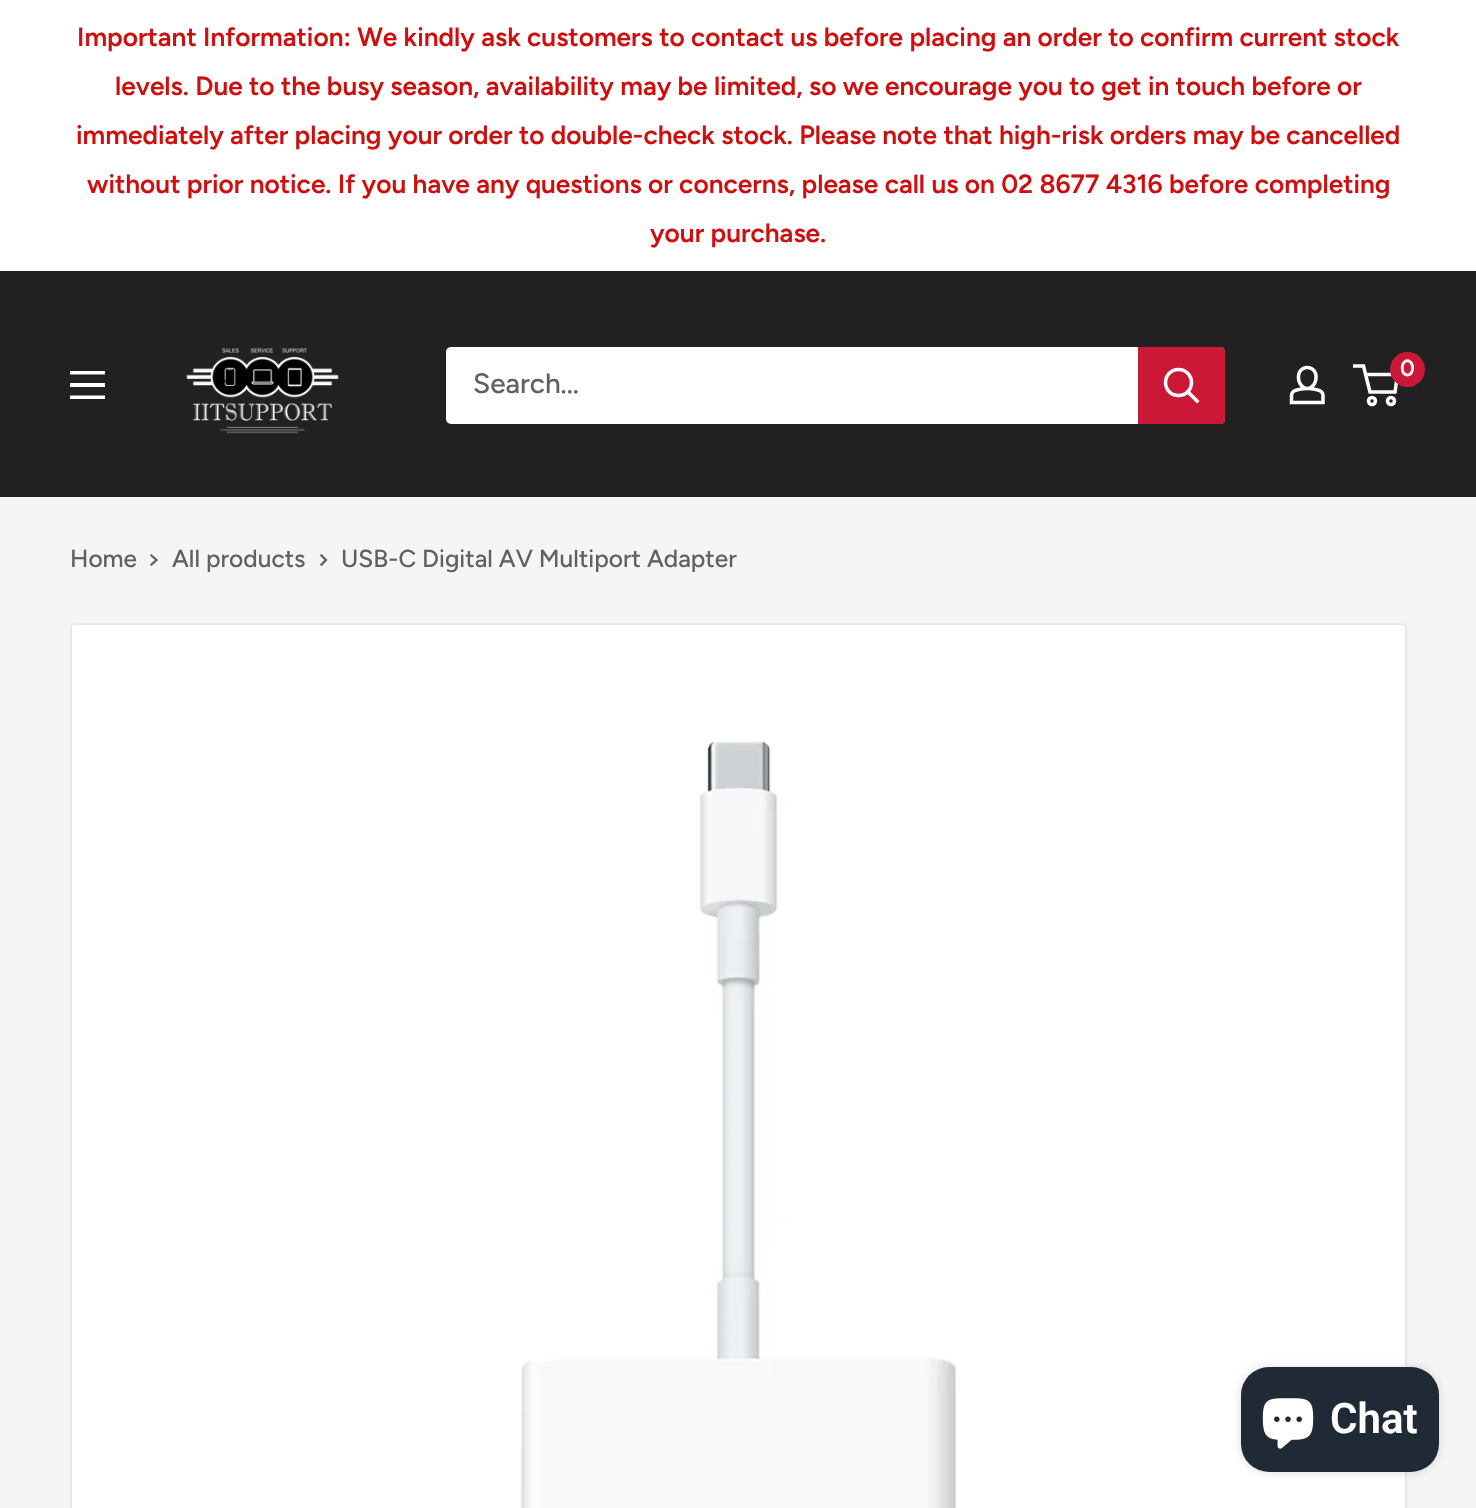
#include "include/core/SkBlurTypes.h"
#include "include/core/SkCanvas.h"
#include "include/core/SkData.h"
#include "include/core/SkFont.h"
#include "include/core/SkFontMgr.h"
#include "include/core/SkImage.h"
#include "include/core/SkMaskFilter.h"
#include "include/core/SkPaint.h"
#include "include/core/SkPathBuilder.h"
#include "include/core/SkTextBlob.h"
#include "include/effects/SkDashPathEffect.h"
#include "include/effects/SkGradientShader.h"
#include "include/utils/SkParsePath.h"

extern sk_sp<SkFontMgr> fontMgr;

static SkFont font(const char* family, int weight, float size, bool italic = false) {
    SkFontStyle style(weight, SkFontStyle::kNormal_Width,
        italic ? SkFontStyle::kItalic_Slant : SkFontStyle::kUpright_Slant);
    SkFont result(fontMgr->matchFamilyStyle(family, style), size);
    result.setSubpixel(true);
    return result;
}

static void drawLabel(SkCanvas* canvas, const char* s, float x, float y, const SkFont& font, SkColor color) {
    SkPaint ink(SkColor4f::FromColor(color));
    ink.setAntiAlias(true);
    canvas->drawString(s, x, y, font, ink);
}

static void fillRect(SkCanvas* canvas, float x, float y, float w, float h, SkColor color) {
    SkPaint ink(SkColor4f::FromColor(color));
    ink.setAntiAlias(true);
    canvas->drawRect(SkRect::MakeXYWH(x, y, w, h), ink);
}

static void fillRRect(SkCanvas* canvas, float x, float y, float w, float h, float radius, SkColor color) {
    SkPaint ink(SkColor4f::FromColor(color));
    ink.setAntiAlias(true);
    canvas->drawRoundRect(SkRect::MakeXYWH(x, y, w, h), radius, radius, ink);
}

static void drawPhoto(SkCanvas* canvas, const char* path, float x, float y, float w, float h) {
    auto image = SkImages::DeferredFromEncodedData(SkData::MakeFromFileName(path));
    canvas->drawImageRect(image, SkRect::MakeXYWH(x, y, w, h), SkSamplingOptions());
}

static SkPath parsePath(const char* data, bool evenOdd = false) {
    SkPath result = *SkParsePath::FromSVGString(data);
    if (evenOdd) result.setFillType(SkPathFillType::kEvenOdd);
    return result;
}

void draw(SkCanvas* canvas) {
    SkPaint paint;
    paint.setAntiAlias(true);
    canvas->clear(0xFFF5F5F5);
    fillRect(canvas, 0, 0, 1476, 270, 0xFFFFFFFF);
    fillRect(canvas, 0, 270, 1476, 1, 0xFFF8F8F8);
    SkFont font1 = font("Figtree", 600, 26.25f);
    drawLabel(canvas, "Important Information: We kindly ask customers to contact us before placing an order to confirm current stock", 77, 46, font1, 0xFFCF0E0E);
    drawLabel(canvas, "levels. Due to the busy season, availability may be limited, so we encourage you to get in touch before or", 115, 95, font1, 0xFFCF0E0E);
    drawLabel(canvas, "immediately after placing your order to double-check stock. Please note that high-risk orders may be cancelled", 76, 144, font1, 0xFFCF0E0E);
    drawLabel(canvas, "without prior notice. If you have any questions or concerns, please call us on 02 8677 4316 before completing", 87, 193, font1, 0xFFCF0E0E);
    drawLabel(canvas, "your purchase.", 650, 242, font1, 0xFFCF0E0E);
    fillRect(canvas, 0, 271, 1476, 226, 0xFF222021);
    drawPhoto(canvas, "assets/img1.png", 186, 348, 153, 86);
    drawPhoto(canvas, "assets/img2.png", 1289, 365, 36, 40);
    paint.setStroke(true);
    paint.setStrokeWidth(3.5f);
    paint.setColor(0xFFFFFFFF);
    canvas->drawCircle(1372, 401, 3.5f, paint);
    canvas->drawCircle(1391, 401, 3.5f, paint);
    canvas->drawPath(parsePath("M1365.5 374.5H1397.5L1395 392H1370L1363.5 366H1353"), paint);
    paint.setStroke(false);
    paint.setColor(0xFFCB1836);
    canvas->drawCircle(1407.5f, 369.5f, 17.5f, paint);
    SkFont font2 = font("Figtree", 600, 23);
    drawLabel(canvas, "0", 1400, 376, font2, 0xFFFFFFFF);
    paint.setColor(0xFFFFFFFF);
    canvas->drawPath(parsePath("M70 395.5H105V399H70ZM70 371H105V374.5H70ZM70 383H105V387H70Z", true), paint);
    fillRRect(canvas, 446, 347, 779, 77, 5, 0xFFFFFFFF);
    SkFont font3 = font("Figtree", 500, 28);
    drawLabel(canvas, "Search...", 473, 393, font3, 0xFF616161);
    paint.setColor(0xFFCB1836);
    canvas->drawPath(parsePath("M1138 347H1220C1223 347 1225 349 1225 352V419C1225 422 1223 424 1220 424H1138Z"), paint);
    paint.setStroke(true);
    paint.setStrokeCap(SkPaint::kSquare_Cap);
    paint.setColor(0xFFFFFFFF);
    canvas->drawPath(parsePath("M1197 401L1188 392"), paint);
    paint.setStrokeCap(SkPaint::kButt_Cap);
    canvas->drawCircle(1178.5f, 382.5f, 13, paint);
    SkFont font4 = font("Figtree", 500, 24.5f);
    drawLabel(canvas, "Home", 70, 567, font4, 0xFF616161);
    paint.setStrokeWidth(2.3f);
    paint.setStrokeCap(SkPaint::kSquare_Cap);
    paint.setColor(0xFF616161);
    canvas->drawPath(parsePath("M151.5 555.5L156.5 560L151.5 564.5"), paint);
    drawLabel(canvas, "All products", 172, 567, font4, 0xFF616161);
    canvas->drawPath(parsePath("M321.5 555.5L326 560L321.5 564.5"), paint);
    drawLabel(canvas, "USB-C Digital AV Multiport Adapter", 341, 567, font4, 0xFF616161);
    paint.setStroke(false);
    paint.setColor(0xFFFFFFFF);
    canvas->drawRoundRect(SkRect::MakeXYWH(71, 624, 1335, 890), 4, 4, paint);
    paint.setStroke(true);
    paint.setStrokeWidth(2);
    paint.setStrokeCap(SkPaint::kButt_Cap);
    paint.setColor(0xFFE8E8E8);
    canvas->drawRoundRect(SkRect::MakeXYWH(71, 624, 1335, 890), 4, 4, paint);
    drawPhoto(canvas, "assets/img3.png", 520, 741, 437, 767);
    paint.setStroke(false);
    paint.setColor(0x26000000);
    paint.setMaskFilter(SkMaskFilter::MakeBlur(kNormal_SkBlurStyle, 4.5f));
    canvas->drawRoundRect(SkRect::MakeXYWH(1241, 1367, 198, 105), 28, 28, paint);
    paint.setMaskFilter(nullptr);
    fillRRect(canvas, 1241, 1367, 198, 105, 28, 0xFF202A36);
    drawPhoto(canvas, "assets/img4.png", 1262, 1398, 52, 51);
    SkFont font5 = font("Roboto", 600, 42);
    drawLabel(canvas, "Chat", 1330, 1433, font5, 0xFFFFFFFF);
}
